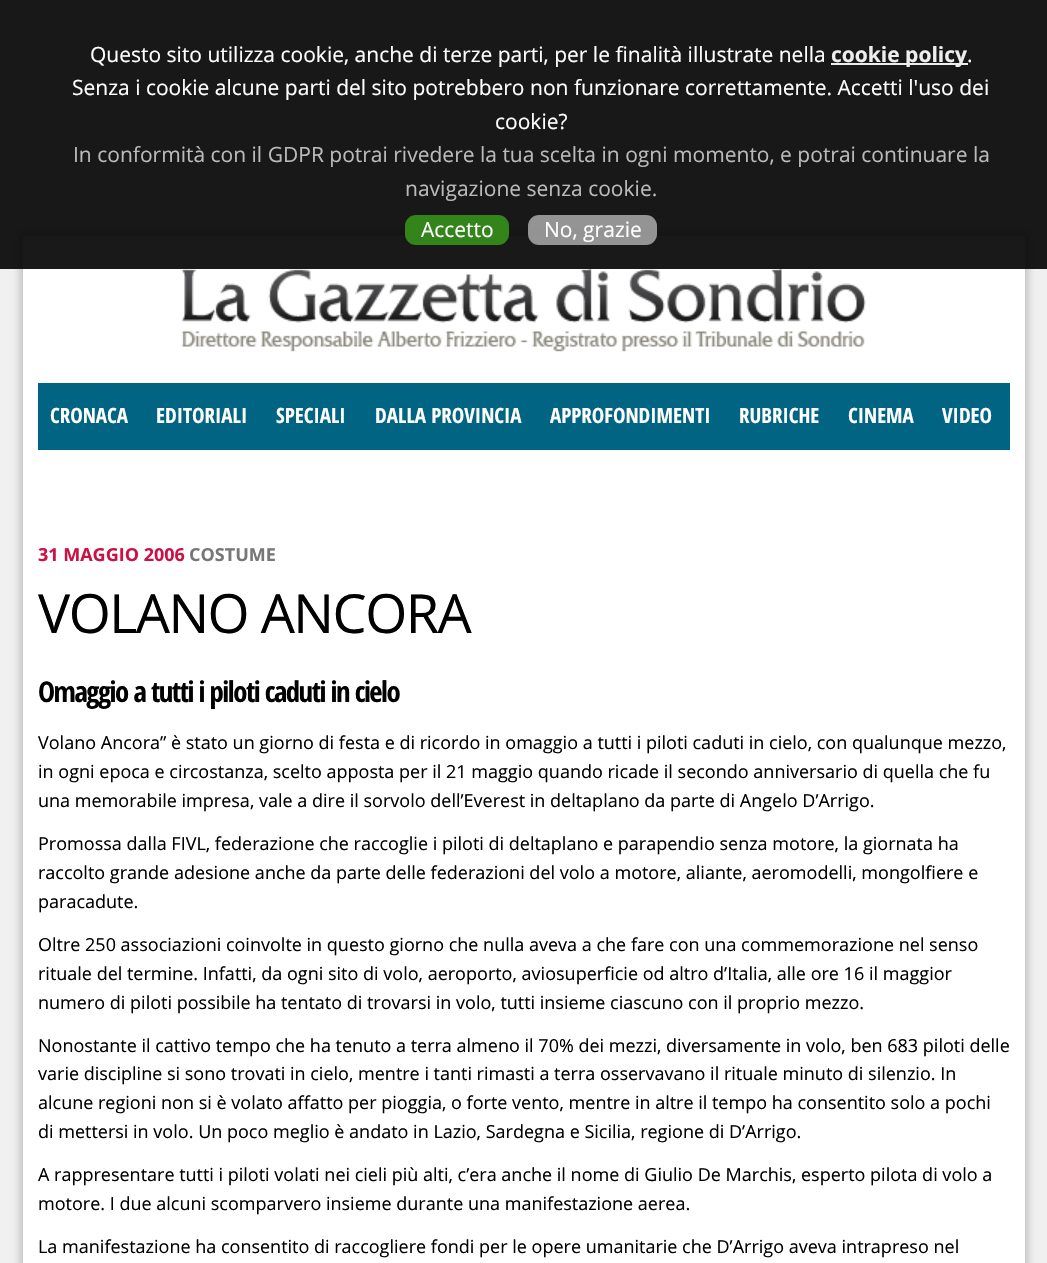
#include "include/core/SkBlurTypes.h"
#include "include/core/SkCanvas.h"
#include "include/core/SkData.h"
#include "include/core/SkFont.h"
#include "include/core/SkFontMgr.h"
#include "include/core/SkImage.h"
#include "include/core/SkMaskFilter.h"
#include "include/core/SkPaint.h"
#include "include/core/SkPathBuilder.h"
#include "include/core/SkTextBlob.h"
#include "include/effects/SkDashPathEffect.h"
#include "include/effects/SkGradientShader.h"
#include "include/utils/SkParsePath.h"

extern sk_sp<SkFontMgr> fontMgr;

static SkFont font(const char* family, int weight, float size, bool italic = false) {
    SkFontStyle style(weight, SkFontStyle::kNormal_Width,
        italic ? SkFontStyle::kItalic_Slant : SkFontStyle::kUpright_Slant);
    SkFont result(fontMgr->matchFamilyStyle(family, style), size);
    result.setSubpixel(true);
    return result;
}

static void drawLabel(SkCanvas* canvas, const char* s, float x, float y, const SkFont& font, SkColor color) {
    SkPaint ink(SkColor4f::FromColor(color));
    ink.setAntiAlias(true);
    canvas->drawString(s, x, y, font, ink);
}

static void drawTracked(SkCanvas* canvas, const char* s, float x, float y, const SkFont& font, const SkPaint& ink, float letter, float word) {
    std::vector<SkGlyphID> glyphs(font.countText(s, strlen(s), SkTextEncoding::kUTF8));
    std::vector<float> xs(glyphs.size());
    font.textToGlyphs(s, strlen(s), SkTextEncoding::kUTF8, glyphs);
    font.getXPos(glyphs, xs, x);
    float extra = 0;
    for (size_t i = 0; i < glyphs.size(); i++) {
        xs[i] += extra;
        extra += letter + word * (glyphs[i] == font.unicharToGlyph(' '));
    }
    canvas->drawTextBlob(SkTextBlob::MakeFromPosHGlyphs(glyphs, xs, y, font), 0, 0, ink);
}

static void fillRect(SkCanvas* canvas, float x, float y, float w, float h, SkColor color) {
    SkPaint ink(SkColor4f::FromColor(color));
    ink.setAntiAlias(true);
    canvas->drawRect(SkRect::MakeXYWH(x, y, w, h), ink);
}

static void fillRRect(SkCanvas* canvas, float x, float y, float w, float h, float radius, SkColor color) {
    SkPaint ink(SkColor4f::FromColor(color));
    ink.setAntiAlias(true);
    canvas->drawRoundRect(SkRect::MakeXYWH(x, y, w, h), radius, radius, ink);
}

static void drawPhoto(SkCanvas* canvas, const char* path, float x, float y, float w, float h) {
    auto image = SkImages::DeferredFromEncodedData(SkData::MakeFromFileName(path));
    canvas->drawImageRect(image, SkRect::MakeXYWH(x, y, w, h), SkSamplingOptions());
}

void draw(SkCanvas* canvas) {
    SkPaint paint;
    paint.setAntiAlias(true);
    canvas->clear(0xFFF0F0F0);
    paint.setColor(0x33000000);
    paint.setMaskFilter(SkMaskFilter::MakeBlur(kNormal_SkBlurStyle, 4));
    canvas->drawRect(SkRect::MakeXYWH(20, 233, 1008, 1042), paint);
    paint.setMaskFilter(nullptr);
    fillRect(canvas, 23, 236, 1002, 1027, 0xFFFFFFFF);
    drawPhoto(canvas, "assets/img1.png", 181, 268, 685, 84);
    fillRect(canvas, 0, 0, 1047, 269, 0xE6000000);
    SkFont font1 = font("Open Sans", 400, 21);
    drawLabel(canvas, "Questo sito utilizza cookie, anche di terze parti, per le finalità illustrate nella", 90, 62, font1, 0xFFFFFFFF);
    fillRect(canvas, 831, 63, 137, 2, 0xFFEEEEEE);
    SkFont font2 = font("Open Sans", 700, 21);
    drawLabel(canvas, "cookie policy", 831, 62, font2, 0xFFEEEEEE);
    drawLabel(canvas, ".", 967, 62, font1, 0xFFFFFFFF);
    drawLabel(canvas, "Senza i cookie alcune parti del sito potrebbero non funzionare correttamente. Accetti l'uso dei", 72, 95, font1, 0xFFFFFFFF);
    drawLabel(canvas, "cookie?", 495, 129, font1, 0xFFFFFFFF);
    drawLabel(canvas, "In conformità con il GDPR potrai rivedere la tua scelta in ogni momento, e potrai continuare la", 73, 162, font1, 0xFFBABABA);
    drawLabel(canvas, "navigazione senza cookie.", 405, 196, font1, 0xFFBABABA);
    fillRRect(canvas, 405, 215, 104, 30, 11, 0xCC39A01C);
    drawLabel(canvas, "Accetto", 421, 237, font1, 0xFFFFFFFF);
    fillRRect(canvas, 528, 215, 129, 30, 11, 0xB3C8C8C8);
    drawLabel(canvas, "No, grazie", 544, 237, font1, 0xFFFFFFFF);
    fillRect(canvas, 38, 383, 972, 67, 0xFF016483);
    SkFont font3 = font("Open Sans Condensed", 700, 21);
    drawLabel(canvas, "CRONACA", 50, 423, font3, 0xFFFFFFFF);
    drawLabel(canvas, "EDITORIALI", 156, 423, font3, 0xFFFFFFFF);
    drawLabel(canvas, "SPECIALI", 276, 423, font3, 0xFFFFFFFF);
    drawLabel(canvas, "DALLA PROVINCIA", 375, 423, font3, 0xFFFFFFFF);
    drawLabel(canvas, "APPROFONDIMENTI", 550, 423, font3, 0xFFFFFFFF);
    drawLabel(canvas, "RUBRICHE", 739, 423, font3, 0xFFFFFFFF);
    drawLabel(canvas, "CINEMA", 848, 423, font3, 0xFFFFFFFF);
    drawLabel(canvas, "VIDEO", 942, 423, font3, 0xFFFFFFFF);
    SkFont font4 = font("Open Sans", 700, 18);
    drawLabel(canvas, "31 MAGGIO 2006", 38, 561, font4, 0xFFCC1144);
    drawLabel(canvas, "COSTUME", 189, 561, font4, 0xFF777777);
    SkFont font5 = font("Open Sans", 400, 54);
    paint.setColor(0xFF000000);
    drawTracked(canvas, "VOLANO ANCORA", 38, 633, font5, paint, -1.5f, 0);
    SkFont font6 = font("Open Sans Condensed", 700, 28.75f);
    drawTracked(canvas, "Omaggio a tutti i piloti caduti in cielo", 38, 702, font6, paint, -1.5f, 0);
    SkFont font7 = font("Open Sans", 400, 18);
    drawLabel(canvas, "Volano Ancora” è stato un giorno di festa e di ricordo in omaggio a tutti i piloti caduti in cielo, con qualunque mezzo,", 38, 749, font7, 0xFF000000);
    drawLabel(canvas, "in ogni epoca e circostanza, scelto apposta per il 21 maggio quando ricade il secondo anniversario di quella che fu", 38, 778, font7, 0xFF000000);
    drawLabel(canvas, "una memorabile impresa, vale a dire il sorvolo dell’Everest in deltaplano da parte di Angelo D’Arrigo.", 38, 807, font7, 0xFF000000);
    drawLabel(canvas, "Promossa dalla FIVL, federazione che raccoglie i piloti di deltaplano e parapendio senza motore, la giornata ha", 38, 850, font7, 0xFF000000);
    drawLabel(canvas, "raccolto grande adesione anche da parte delle federazioni del volo a motore, aliante, aeromodelli, mongolfiere e", 38, 879, font7, 0xFF000000);
    drawLabel(canvas, "paracadute.", 38, 908, font7, 0xFF000000);
    drawLabel(canvas, "Oltre 250 associazioni coinvolte in questo giorno che nulla aveva a che fare con una commemorazione nel senso", 38, 951, font7, 0xFF000000);
    drawLabel(canvas, "rituale del termine. Infatti, da ogni sito di volo, aeroporto, aviosuperficie od altro d’Italia, alle ore 16 il maggior", 38, 980, font7, 0xFF000000);
    drawLabel(canvas, "numero di piloti possibile ha tentato di trovarsi in volo, tutti insieme ciascuno con il proprio mezzo.", 38, 1009, font7, 0xFF000000);
    drawLabel(canvas, "Nonostante il cattivo tempo che ha tenuto a terra almeno il 70% dei mezzi, diversamente in volo, ben 683 piloti delle", 38, 1052, font7, 0xFF000000);
    drawLabel(canvas, "varie discipline si sono trovati in cielo, mentre i tanti rimasti a terra osservavano il rituale minuto di silenzio. In", 38, 1080, font7, 0xFF000000);
    drawLabel(canvas, "alcune regioni non si è volato affatto per pioggia, o forte vento, mentre in altre il tempo ha consentito solo a pochi", 38, 1109, font7, 0xFF000000);
    drawLabel(canvas, "di mettersi in volo. Un poco meglio è andato in Lazio, Sardegna e Sicilia, regione di D’Arrigo.", 38, 1138, font7, 0xFF000000);
    drawLabel(canvas, "A rappresentare tutti i piloti volati nei cieli più alti, c’era anche il nome di Giulio De Marchis, esperto pilota di volo a", 38, 1181, font7, 0xFF000000);
    drawLabel(canvas, "motore. I due alcuni scomparvero insieme durante una manifestazione aerea.", 38, 1210, font7, 0xFF000000);
    drawLabel(canvas, "La manifestazione ha consentito di raccogliere fondi per le opere umanitarie che D’Arrigo aveva intrapreso nel", 38, 1253, font7, 0xFF000000);
}
